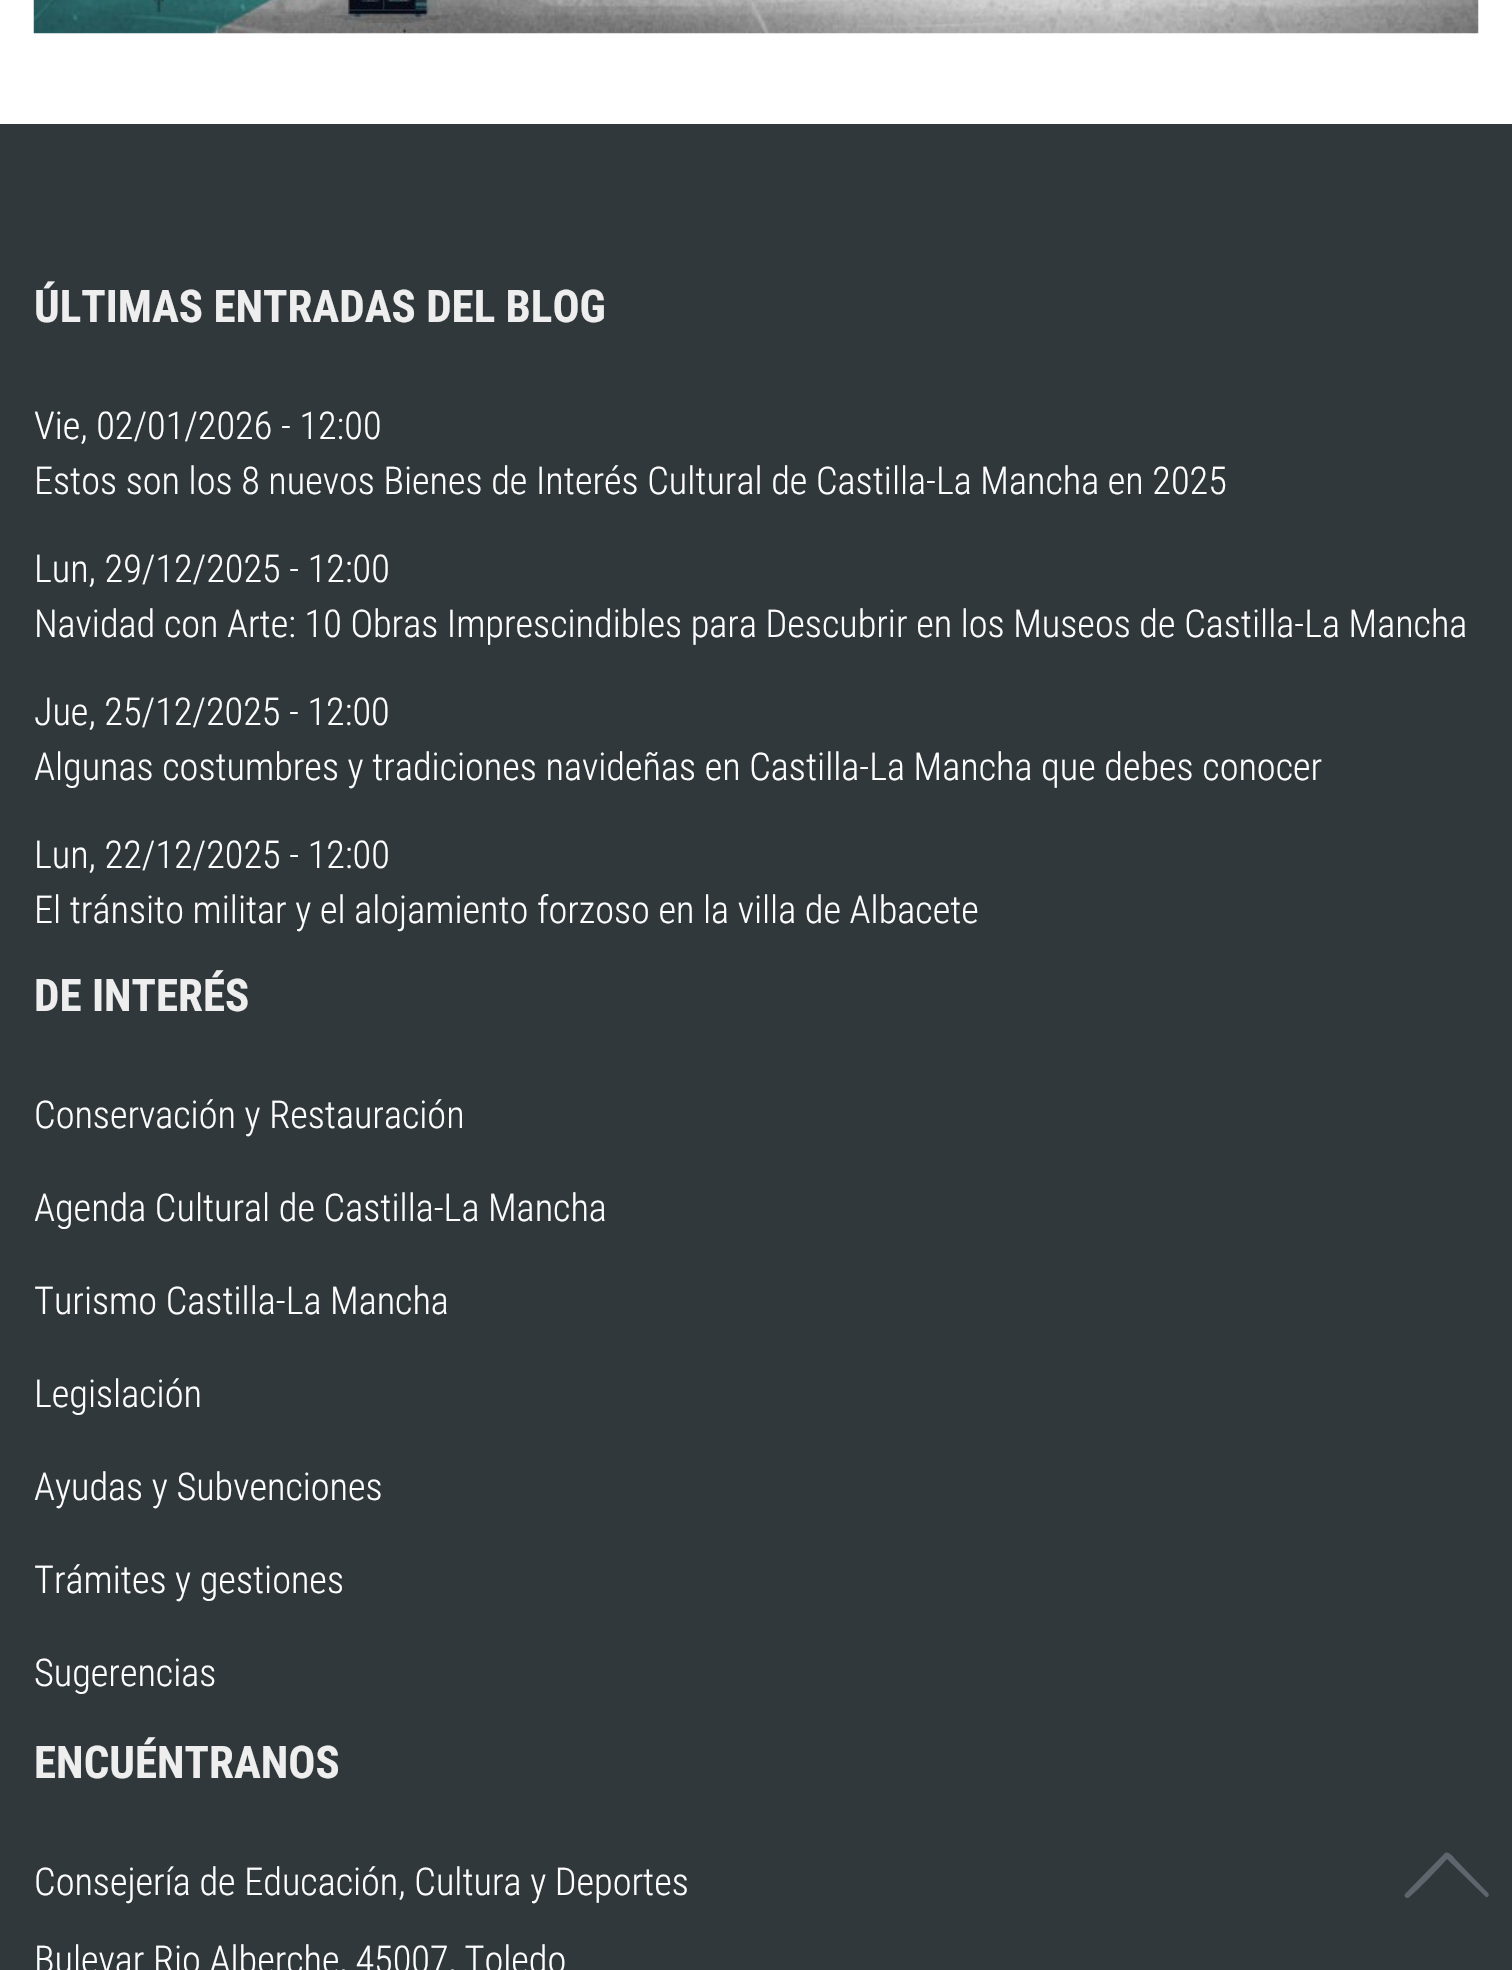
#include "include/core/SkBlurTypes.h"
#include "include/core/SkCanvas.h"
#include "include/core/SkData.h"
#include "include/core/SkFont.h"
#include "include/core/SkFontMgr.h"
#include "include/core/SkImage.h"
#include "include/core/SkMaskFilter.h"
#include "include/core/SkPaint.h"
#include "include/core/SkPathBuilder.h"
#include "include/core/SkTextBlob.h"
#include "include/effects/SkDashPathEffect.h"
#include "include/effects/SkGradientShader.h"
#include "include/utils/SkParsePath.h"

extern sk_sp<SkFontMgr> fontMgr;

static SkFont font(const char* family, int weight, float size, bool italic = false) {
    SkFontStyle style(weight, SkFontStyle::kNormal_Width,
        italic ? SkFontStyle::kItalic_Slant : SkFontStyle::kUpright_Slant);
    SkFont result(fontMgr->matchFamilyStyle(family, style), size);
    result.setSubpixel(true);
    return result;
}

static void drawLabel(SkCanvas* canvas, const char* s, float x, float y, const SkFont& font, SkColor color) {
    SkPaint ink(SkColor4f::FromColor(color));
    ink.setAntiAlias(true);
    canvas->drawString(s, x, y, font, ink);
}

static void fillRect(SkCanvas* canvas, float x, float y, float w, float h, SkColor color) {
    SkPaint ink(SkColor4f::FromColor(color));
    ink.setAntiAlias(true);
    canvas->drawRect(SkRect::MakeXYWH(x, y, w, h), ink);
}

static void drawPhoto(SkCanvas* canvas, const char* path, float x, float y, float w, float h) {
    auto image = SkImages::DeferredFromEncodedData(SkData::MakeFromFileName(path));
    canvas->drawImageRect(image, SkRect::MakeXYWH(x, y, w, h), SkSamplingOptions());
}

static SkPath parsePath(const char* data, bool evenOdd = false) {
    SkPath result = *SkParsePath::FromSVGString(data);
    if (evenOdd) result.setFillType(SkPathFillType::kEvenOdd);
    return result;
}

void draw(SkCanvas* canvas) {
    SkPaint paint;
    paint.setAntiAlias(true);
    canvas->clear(0xFFFFFFFF);
    drawPhoto(canvas, "assets/img1.png", 33, 0, 1446, 34);
    fillRect(canvas, 0, 124, 1512, 1846, 0xFF31383C);
    SkFont font1 = font("Roboto Condensed", 700, 45);
    drawLabel(canvas, "ÚLTIMAS ENTRADAS DEL BLOG", 34, 322, font1, 0xFFEEEEEE);
    SkFont font2 = font("Roboto Condensed", 300, 38.25f);
    drawLabel(canvas, "Vie, 02/01/2026 - 12:00", 34, 439, font2, 0xFFFFFFFF);
    drawLabel(canvas, "Estos son los 8 nuevos Bienes de Interés Cultural de Castilla-La Mancha en 2025", 34, 494, font2, 0xFFFFFFFF);
    drawLabel(canvas, "Lun, 29/12/2025 - 12:00", 34, 582, font2, 0xFFFFFFFF);
    drawLabel(canvas, "Navidad con Arte: 10 Obras Imprescindibles para Descubrir en los Museos de Castilla-La Mancha", 34, 637, font2, 0xFFFFFFFF);
    drawLabel(canvas, "Jue, 25/12/2025 - 12:00", 34, 725, font2, 0xFFFFFFFF);
    drawLabel(canvas, "Algunas costumbres y tradiciones navideñas en Castilla-La Mancha que debes conocer", 34, 780, font2, 0xFFFFFFFF);
    drawLabel(canvas, "Lun, 22/12/2025 - 12:00", 34, 868, font2, 0xFFFFFFFF);
    drawLabel(canvas, "El tránsito militar y el alojamiento forzoso en la villa de Albacete", 34, 923, font2, 0xFFFFFFFF);
    drawLabel(canvas, "DE INTERÉS", 34, 1011, font1, 0xFFEEEEEE);
    drawLabel(canvas, "Conservación y Restauración", 34, 1128, font2, 0xFFFFFFFF);
    drawLabel(canvas, "Agenda Cultural de Castilla-La Mancha", 34, 1221, font2, 0xFFFFFFFF);
    drawLabel(canvas, "Turismo Castilla-La Mancha", 34, 1314, font2, 0xFFFFFFFF);
    drawLabel(canvas, "Legislación", 34, 1407, font2, 0xFFFFFFFF);
    drawLabel(canvas, "Ayudas y Subvenciones", 34, 1500, font2, 0xFFFFFFFF);
    drawLabel(canvas, "Trámites y gestiones", 34, 1593, font2, 0xFFFFFFFF);
    drawLabel(canvas, "Sugerencias", 34, 1686, font2, 0xFFFFFFFF);
    drawLabel(canvas, "ENCUÉNTRANOS", 34, 1778, font1, 0xFFEEEEEE);
    drawLabel(canvas, "Consejería de Educación, Cultura y Deportes", 34, 1895, font2, 0xFFFFFFFF);
    drawLabel(canvas, "Bulevar Rio Alberche, 45007, Toledo", 34, 1973, font2, 0xFFFFFFFF);
    paint.setColor(0xFF5D666D);
    canvas->drawPath(parsePath("M1405 1894C1404 1896 1405 1898 1408 1898C1410 1898 1443 1864 1447 1859L1486 1897C1488 1898 1490 1895 1488 1893L1456 1860C1456 1860 1449 1850 1445 1853Z"), paint);
}
